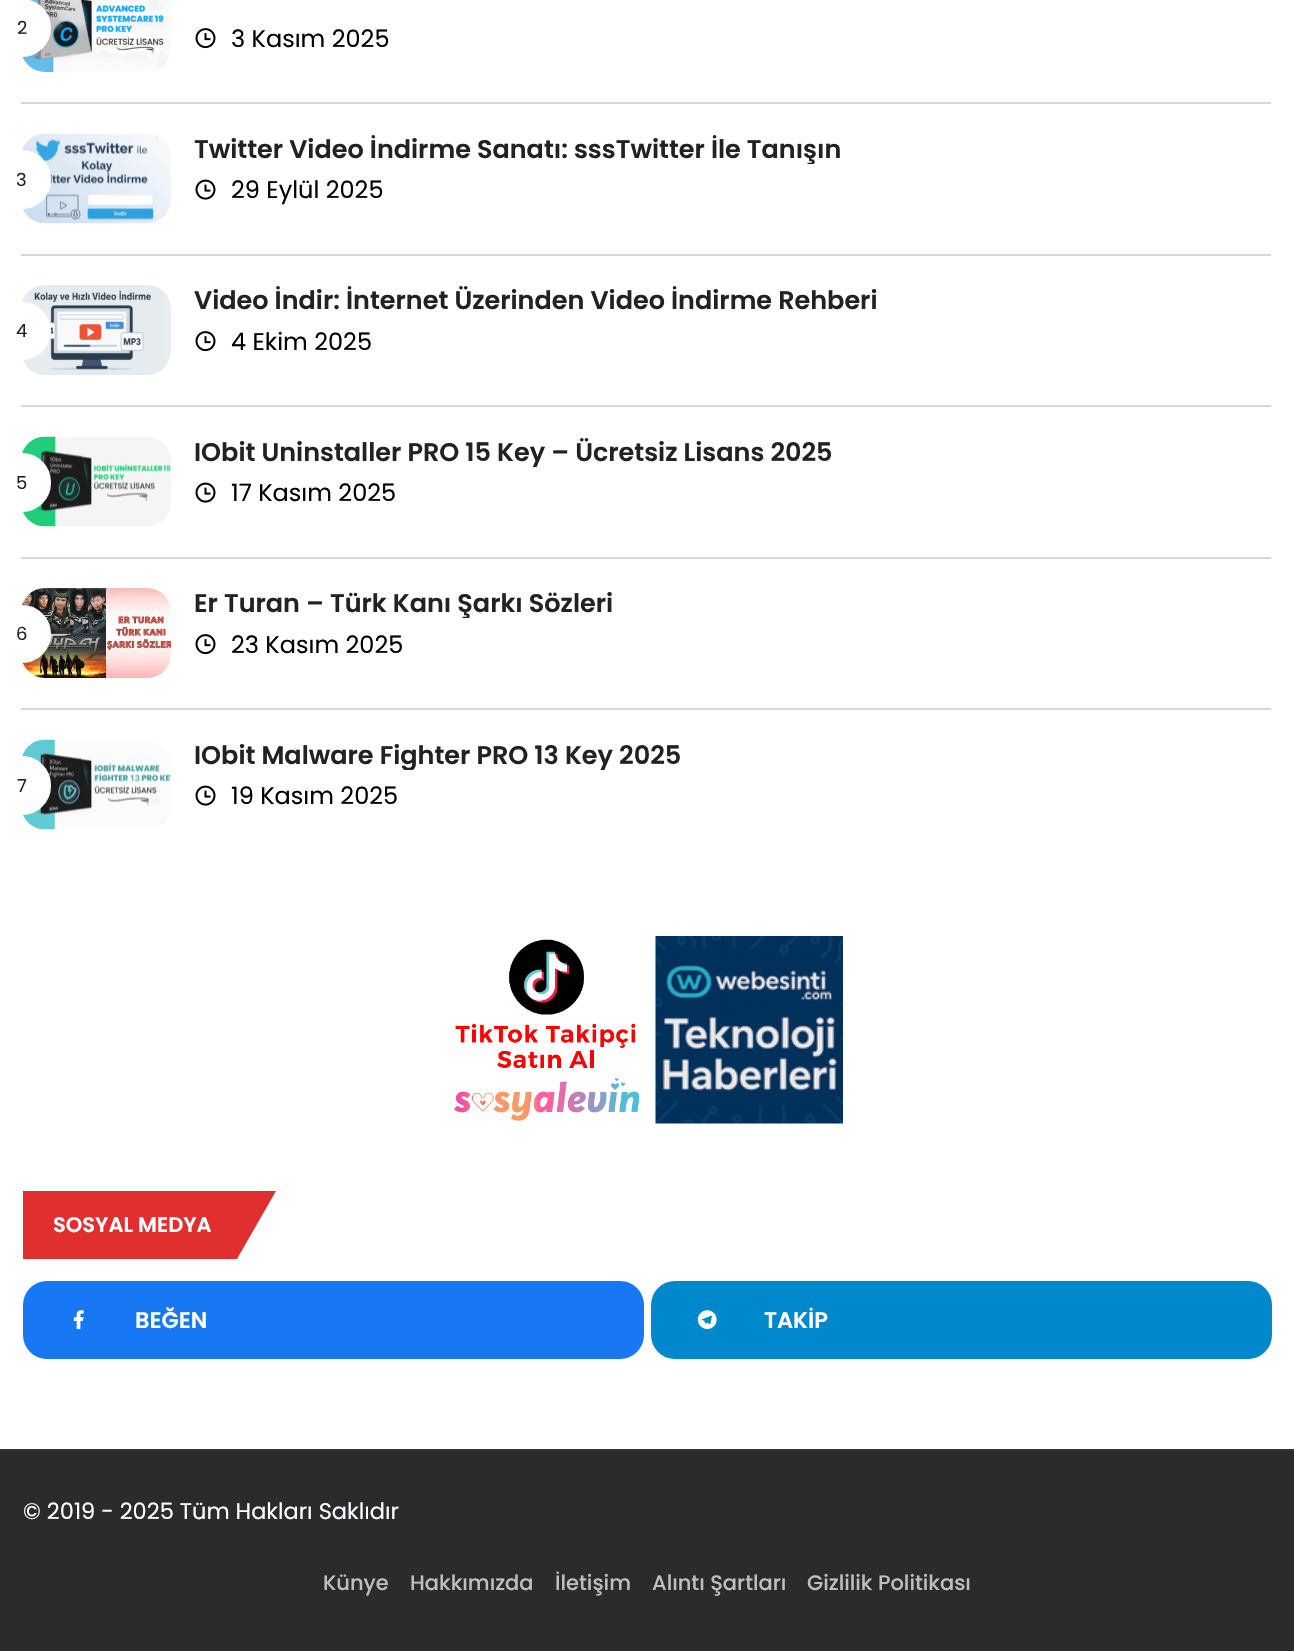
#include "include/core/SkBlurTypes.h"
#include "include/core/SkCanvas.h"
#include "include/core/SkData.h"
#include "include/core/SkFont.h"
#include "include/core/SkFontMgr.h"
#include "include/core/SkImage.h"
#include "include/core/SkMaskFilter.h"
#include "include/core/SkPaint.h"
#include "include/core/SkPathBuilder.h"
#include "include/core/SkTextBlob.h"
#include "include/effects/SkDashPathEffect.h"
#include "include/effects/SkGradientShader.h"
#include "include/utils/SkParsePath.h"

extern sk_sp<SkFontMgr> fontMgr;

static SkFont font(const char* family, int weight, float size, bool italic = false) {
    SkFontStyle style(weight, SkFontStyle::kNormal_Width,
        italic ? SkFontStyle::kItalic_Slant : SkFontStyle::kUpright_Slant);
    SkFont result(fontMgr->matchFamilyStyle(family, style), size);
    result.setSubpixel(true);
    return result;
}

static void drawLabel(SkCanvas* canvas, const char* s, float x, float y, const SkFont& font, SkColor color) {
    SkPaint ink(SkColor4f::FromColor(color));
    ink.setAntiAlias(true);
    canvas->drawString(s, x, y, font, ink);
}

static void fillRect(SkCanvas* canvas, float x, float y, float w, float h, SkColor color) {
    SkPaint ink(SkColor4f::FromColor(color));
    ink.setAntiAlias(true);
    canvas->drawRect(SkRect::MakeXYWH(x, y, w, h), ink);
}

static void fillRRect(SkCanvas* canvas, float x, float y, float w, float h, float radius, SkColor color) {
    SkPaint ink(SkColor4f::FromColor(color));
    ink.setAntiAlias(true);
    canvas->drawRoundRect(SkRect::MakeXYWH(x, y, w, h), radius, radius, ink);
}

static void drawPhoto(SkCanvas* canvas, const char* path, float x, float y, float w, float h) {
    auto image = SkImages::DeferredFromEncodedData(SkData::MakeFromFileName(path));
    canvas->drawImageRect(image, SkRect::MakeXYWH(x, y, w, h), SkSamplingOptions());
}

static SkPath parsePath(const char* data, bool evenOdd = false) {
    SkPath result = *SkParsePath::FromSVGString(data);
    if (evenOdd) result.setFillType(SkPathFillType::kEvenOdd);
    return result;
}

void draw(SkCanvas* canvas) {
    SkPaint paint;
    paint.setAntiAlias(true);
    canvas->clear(0xFFFFFFFF);
    fillRect(canvas, 21, 102, 1250, 2, 0xFFD5D7DA);
    drawPhoto(canvas, "assets/img1.png", 22, 0, 149, 72);
    paint.setColor(0xFFFFFFFF);
    canvas->drawCircle(22, 28, 27.5f, paint);
    paint.setStroke(true);
    paint.setStrokeWidth(3);
    canvas->drawCircle(22, 28, 27.5f, paint);
    SkFont font1 = font("Poppins", 400, 18);
    drawLabel(canvas, "2", 17, 34, font1, 0xFF222222);
    drawPhoto(canvas, "assets/img2.png", 195, 28, 21, 21);
    SkFont font2 = font("Poppins", 400, 24);
    drawLabel(canvas, "3 Kasım 2025", 231, 47, font2, 0xFF000000);
    fillRect(canvas, 21, 254, 1250, 2, 0xFFD5D7DA);
    drawPhoto(canvas, "assets/img3.png", 22, 133, 149, 91);
    paint.setStroke(false);
    canvas->drawRoundRect(SkRect::MakeXYWH(-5.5f, 151.5f, 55, 56), 27.5f, 27.5f, paint);
    paint.setStroke(true);
    canvas->drawRoundRect(SkRect::MakeXYWH(-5.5f, 151.5f, 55, 56), 27.5f, 27.5f, paint);
    drawLabel(canvas, "3", 16, 186, font1, 0xFF222222);
    canvas->save();
    canvas->clipRect(SkRect::MakeXYWH(194, 134, 1077, 30));
    SkFont font3 = font("Poppins", 600, 25.5f);
    drawLabel(canvas, "Twitter Video İndirme Sanatı: sssTwitter İle Tanışın", 194, 158, font3, 0xFF222222);
    canvas->restore();
    drawPhoto(canvas, "assets/img4.png", 195, 179, 21, 21);
    drawLabel(canvas, "29 Eylül 2025", 231, 198, font2, 0xFF000000);
    fillRect(canvas, 21, 405, 1250, 2, 0xFFD5D7DA);
    drawPhoto(canvas, "assets/img5.png", 21, 285, 150, 90);
    paint.setStroke(false);
    canvas->drawCircle(22, 331, 27.5f, paint);
    paint.setStroke(true);
    canvas->drawCircle(22, 331, 27.5f, paint);
    drawLabel(canvas, "4", 16, 337, font1, 0xFF222222);
    drawLabel(canvas, "Video İndir: İnternet Üzerinden Video İndirme Rehberi", 194, 309, font3, 0xFF222222);
    drawPhoto(canvas, "assets/img2.png", 195, 331, 21, 21);
    drawLabel(canvas, "4 Ekim 2025", 231, 350, font2, 0xFF000000);
    fillRect(canvas, 21, 557, 1250, 2, 0xFFD5D7DA);
    drawPhoto(canvas, "assets/img6.png", 22, 436, 149, 91);
    paint.setStroke(false);
    canvas->drawRoundRect(SkRect::MakeXYWH(-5.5f, 454.5f, 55, 56), 27.5f, 27.5f, paint);
    paint.setStroke(true);
    canvas->drawRoundRect(SkRect::MakeXYWH(-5.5f, 454.5f, 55, 56), 27.5f, 27.5f, paint);
    drawLabel(canvas, "5", 16, 489, font1, 0xFF222222);
    canvas->save();
    canvas->clipRect(SkRect::MakeXYWH(194, 437, 1077, 30));
    drawLabel(canvas, "IObit Uninstaller PRO 15 Key – Ücretsiz Lisans 2025", 194, 461, font3, 0xFF222222);
    canvas->restore();
    drawPhoto(canvas, "assets/img4.png", 195, 482, 21, 21);
    drawLabel(canvas, "17 Kasım 2025", 231, 501, font2, 0xFF000000);
    fillRect(canvas, 21, 708, 1250, 2, 0xFFD5D7DA);
    drawPhoto(canvas, "assets/img7.png", 21, 588, 150, 90);
    paint.setStroke(false);
    canvas->drawCircle(22, 634, 27.5f, paint);
    paint.setStroke(true);
    canvas->drawCircle(22, 634, 27.5f, paint);
    drawLabel(canvas, "6", 16, 640, font1, 0xFF222222);
    canvas->save();
    canvas->clipRect(SkRect::MakeXYWH(194, 588, 1077, 30));
    drawLabel(canvas, "Er Turan – Türk Kanı Şarkı Sözleri", 194, 612, font3, 0xFF222222);
    canvas->restore();
    drawPhoto(canvas, "assets/img2.png", 195, 634, 21, 21);
    drawLabel(canvas, "23 Kasım 2025", 231, 653, font2, 0xFF000000);
    drawPhoto(canvas, "assets/img8.png", 22, 739, 149, 91);
    paint.setStroke(false);
    canvas->drawRoundRect(SkRect::MakeXYWH(-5.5f, 757.5f, 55, 56), 27.5f, 27.5f, paint);
    paint.setStroke(true);
    canvas->drawRoundRect(SkRect::MakeXYWH(-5.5f, 757.5f, 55, 56), 27.5f, 27.5f, paint);
    drawLabel(canvas, "7", 17, 792, font1, 0xFF222222);
    canvas->save();
    canvas->clipRect(SkRect::MakeXYWH(194, 740, 1077, 30));
    drawLabel(canvas, "IObit Malware Fighter PRO 13 Key 2025", 194, 764, font3, 0xFF222222);
    canvas->restore();
    drawPhoto(canvas, "assets/img4.png", 195, 785, 21, 21);
    drawLabel(canvas, "19 Kasım 2025", 231, 804, font2, 0xFF000000);
    drawPhoto(canvas, "assets/img9.png", 454, 939, 186, 182);
    drawPhoto(canvas, "assets/img10.png", 655, 936, 188, 188);
    fillRect(canvas, 23, 1191, 105, 68, 0xFFE12E2E);
    paint.setStroke(false);
    paint.setColor(0xFFE12E2E);
    canvas->drawPath(parsePath("M128 1191H276L237 1259H89Z"), paint);
    SkFont font4 = font("Poppins", 600, 21);
    drawLabel(canvas, "SOSYAL MEDYA", 53, 1232, font4, 0xFFFFFFFF);
    fillRRect(canvas, 23, 1281, 621, 78, 24, 0xFF1877F2);
    drawPhoto(canvas, "assets/img11.png", 73, 1310, 11, 19);
    SkFont font5 = font("Poppins", 600, 22.5f);
    drawLabel(canvas, "BEĞEN", 135, 1328, font5, 0xFFFFFFFF);
    fillRRect(canvas, 651, 1281, 621, 78, 24, 0xFF0088CC);
    drawPhoto(canvas, "assets/img12.png", 697, 1310, 20, 19);
    drawLabel(canvas, "TAKİP", 764, 1328, font5, 0xFFFFFFFF);
    fillRect(canvas, 0, 1451, 1294, 200, 0xFF2A2B2D);
    fillRect(canvas, 0, 1449, 1294, 2, 0xFF353638);
    SkFont font6 = font("Poppins", 400, 22.5f);
    drawLabel(canvas, "© 2019 - 2025 Tüm Hakları Saklıdır", 23, 1519, font6, 0xFFFFFFFF);
    SkFont font7 = font("Poppins", 500, 21);
    drawLabel(canvas, "Künye", 323, 1590, font7, 0xFFBFBFC0);
    drawLabel(canvas, "Hakkımızda", 410, 1590, font7, 0xFFBFBFC0);
    drawLabel(canvas, "İletişim", 555, 1590, font7, 0xFFBFBFC0);
    drawLabel(canvas, "Alıntı Şartları", 652, 1590, font7, 0xFFBFBFC0);
    drawLabel(canvas, "Gizlilik Politikası", 807, 1590, font7, 0xFFBFBFC0);
}
